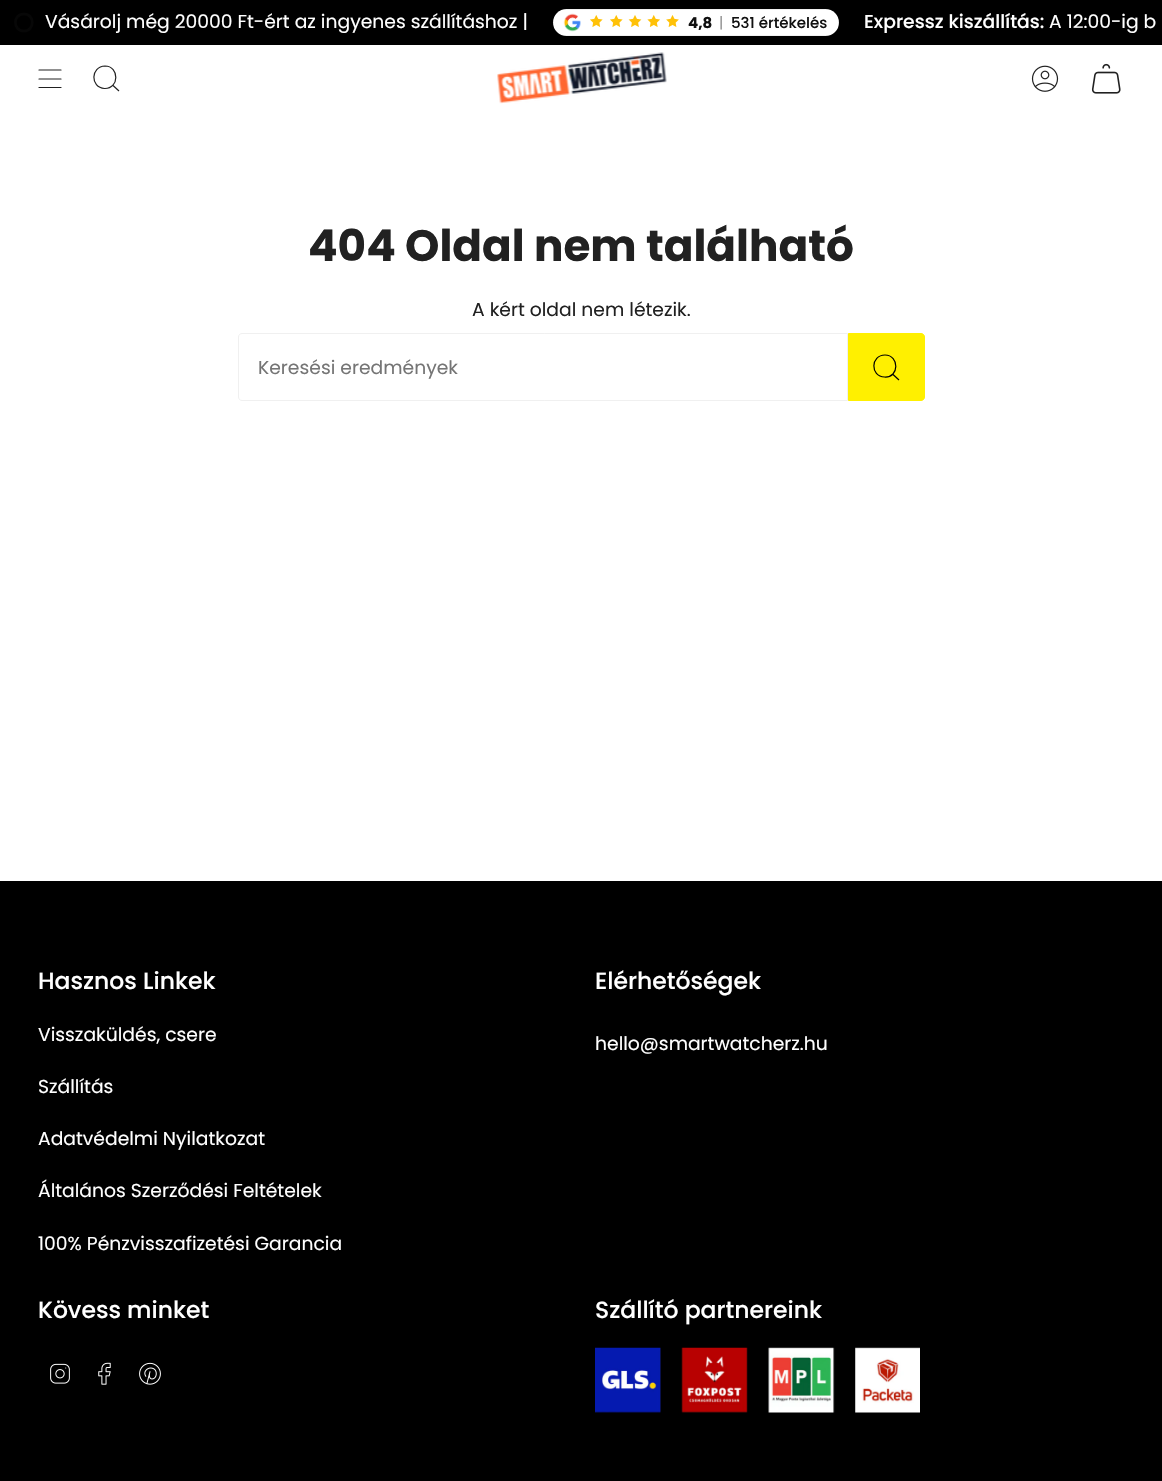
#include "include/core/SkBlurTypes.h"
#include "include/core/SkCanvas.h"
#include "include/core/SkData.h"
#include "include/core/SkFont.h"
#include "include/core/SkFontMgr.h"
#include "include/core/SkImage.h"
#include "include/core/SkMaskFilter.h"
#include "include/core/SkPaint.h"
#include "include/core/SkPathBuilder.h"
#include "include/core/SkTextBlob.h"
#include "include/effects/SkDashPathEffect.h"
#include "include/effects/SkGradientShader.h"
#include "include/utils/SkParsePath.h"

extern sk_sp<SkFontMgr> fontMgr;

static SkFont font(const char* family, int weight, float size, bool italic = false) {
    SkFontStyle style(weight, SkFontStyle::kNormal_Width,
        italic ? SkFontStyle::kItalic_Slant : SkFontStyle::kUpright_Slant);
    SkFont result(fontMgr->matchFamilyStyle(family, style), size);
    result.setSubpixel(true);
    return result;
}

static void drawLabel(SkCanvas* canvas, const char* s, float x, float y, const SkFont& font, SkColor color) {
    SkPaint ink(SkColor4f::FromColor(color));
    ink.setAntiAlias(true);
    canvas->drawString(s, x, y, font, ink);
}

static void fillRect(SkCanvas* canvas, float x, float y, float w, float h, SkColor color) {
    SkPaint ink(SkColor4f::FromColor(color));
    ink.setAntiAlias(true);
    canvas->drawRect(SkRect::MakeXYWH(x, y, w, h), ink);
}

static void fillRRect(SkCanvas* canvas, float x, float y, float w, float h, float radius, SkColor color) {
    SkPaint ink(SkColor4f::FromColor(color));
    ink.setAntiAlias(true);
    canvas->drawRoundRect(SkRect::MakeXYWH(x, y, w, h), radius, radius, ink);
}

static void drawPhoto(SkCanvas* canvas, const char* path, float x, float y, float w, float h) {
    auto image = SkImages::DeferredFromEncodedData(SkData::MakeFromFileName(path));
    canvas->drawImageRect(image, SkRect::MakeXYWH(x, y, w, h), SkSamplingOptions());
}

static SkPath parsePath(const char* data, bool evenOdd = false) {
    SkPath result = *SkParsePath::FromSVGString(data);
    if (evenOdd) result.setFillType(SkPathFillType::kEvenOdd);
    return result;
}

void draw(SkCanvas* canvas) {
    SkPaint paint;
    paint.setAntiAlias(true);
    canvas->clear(0xFFFFFFFF);
    fillRect(canvas, 0, 0, 1162, 45, 0xFF000000);
    paint.setStroke(true);
    paint.setStrokeWidth(2.5f);
    paint.setColor(0xFF070707);
    canvas->drawPath(parsePath("M24 14C12.5 14 12.5 31 24 31C35 31 35 14 24 14Z"), paint);
    SkFont font1 = font("Poppins", 400, 18.75f);
    drawLabel(canvas, "Vásárolj még 20000 Ft-ért az ingyenes szállításhoz |", 45, 28, font1, 0xFFFFFFFF);
    fillRRect(canvas, 553, 9, 286, 27, 13.5f, 0xFFFFFFFF);
    paint.setStrokeWidth(1);
    paint.setColor(0x0F000000);
    canvas->drawRect(SkRect::MakeXYWH(553.5f, 9.5f, 285, 26), paint);
    drawPhoto(canvas, "assets/img1.png", 563, 13, 18, 19);
    drawPhoto(canvas, "assets/img2.png", 590, 15, 13, 12);
    drawPhoto(canvas, "assets/img2.png", 610, 15, 13, 12);
    drawPhoto(canvas, "assets/img3.png", 628, 15, 14, 12);
    drawPhoto(canvas, "assets/img4.png", 647, 15, 13, 12);
    drawPhoto(canvas, "assets/img5.png", 666, 15, 13, 12);
    SkFont font2 = font("Poppins", 700, 15);
    drawLabel(canvas, "4,8", 688, 28, font2, 0xFF111111);
    SkFont font3 = font("Poppins", 400, 15);
    drawLabel(canvas, "|", 719, 28, font3, 0xFF949494);
    SkFont font4 = font("Poppins", 500, 15);
    drawLabel(canvas, "531 értékelés", 731, 28, font4, 0xFF111111);
    SkFont font5 = font("Poppins", 500, 18.75f);
    drawLabel(canvas, "Expressz kiszállítás:", 864, 28, font5, 0xFFFFFFFF);
    drawLabel(canvas, "A 12:00-ig b", 1049, 28, font1, 0xFFFFFFFF);
    paint.setStrokeWidth(1.2f);
    paint.setStrokeCap(SkPaint::kRound_Cap);
    paint.setStrokeJoin(SkPaint::kRound_Join);
    paint.setColor(0xFF212121);
    canvas->drawPath(parsePath("M39 70H61M39 79H61M39 87.5H61"), paint);
    paint.setStrokeCap(SkPaint::kButt_Cap);
    paint.setStrokeJoin(SkPaint::kMiter_Join);
    canvas->drawPath(parsePath("M105 66C119.5 66 119.5 89 104.5 88.5C90 87.5 90.5 66.5 105 66ZM112.5 85L119 91"), paint);
    drawPhoto(canvas, "assets/img6.png", 497, 52, 170, 52);
    drawPhoto(canvas, "assets/img7.png", 1031, 65, 28, 27);
    drawPhoto(canvas, "assets/img8.png", 1091, 63, 30, 31);
    SkFont font6 = font("Poppins", 700, 43.75f);
    drawLabel(canvas, "404 Oldal nem található", 308, 261, font6, 0xFF212121);
    drawLabel(canvas, "A kért oldal nem létezik.", 472, 316, font1, 0xFF212121);
    paint.setStrokeWidth(1);
    paint.setColor(0xFFF0F0F0);
    canvas->drawPath(parsePath("M242 333.5H847.5V400.5H242C240 400.5 238.5 399 238.5 397V337C238.5 335 240 333.5 242 333.5Z"), paint);
    drawLabel(canvas, "Keresési eredmények", 258, 374, font1, 0xFF757575);
    paint.setStroke(false);
    paint.setColor(0xFFFFF000);
    canvas->drawPath(parsePath("M848.5 333.5H921C923 333.5 924.5 335 924.5 337V397C924.5 399 923 400.5 921 400.5H848.5Z"), paint);
    paint.setStroke(true);
    canvas->drawPath(parsePath("M848.5 333.5H921C923 333.5 924.5 335 924.5 337V397C924.5 399 923 400.5 921 400.5H848.5Z"), paint);
    paint.setStrokeWidth(1.2f);
    paint.setColor(0xFF000000);
    canvas->drawPath(parsePath("M885 355C899.5 355 899.5 378 884.5 377C870 376.5 870.5 355 885 355ZM892.5 374L899 380"), paint);
    fillRect(canvas, 0, 881, 1162, 600, 0xFF000000);
    SkFont font7 = font("Poppins", 500, 23.5f);
    drawLabel(canvas, "Hasznos Linkek", 38, 989, font7, 0xFFFFFFFF);
    drawLabel(canvas, "Visszaküldés, csere", 38, 1041, font1, 0xFFFFFFFF);
    drawLabel(canvas, "Szállítás", 38, 1093, font1, 0xFFFFFFFF);
    drawLabel(canvas, "Adatvédelmi Nyilatkozat", 38, 1145, font1, 0xFFFFFFFF);
    drawLabel(canvas, "Általános Szerződési Feltételek", 38, 1197, font1, 0xFFFFFFFF);
    drawLabel(canvas, "100% Pénzvisszafizetési Garancia", 38, 1250, font1, 0xFFFFFFFF);
    drawLabel(canvas, "Elérhetőségek", 595, 989, font7, 0xFFFFFFFF);
    drawLabel(canvas, "hello@smartwatcherz.hu", 595, 1050, font1, 0xFFFFFFFF);
    drawLabel(canvas, "Kövess minket", 38, 1318, font7, 0xFFFFFFFF);
    drawPhoto(canvas, "assets/img9.png", 50, 1363, 20, 21);
    drawPhoto(canvas, "assets/img10.png", 98, 1362, 13, 23);
    drawPhoto(canvas, "assets/img11.png", 139, 1362, 22, 23);
    drawLabel(canvas, "Szállító partnereink", 595, 1318, font7, 0xFFFFFFFF);
    drawPhoto(canvas, "assets/img12.png", 595, 1347, 325, 66);
}
